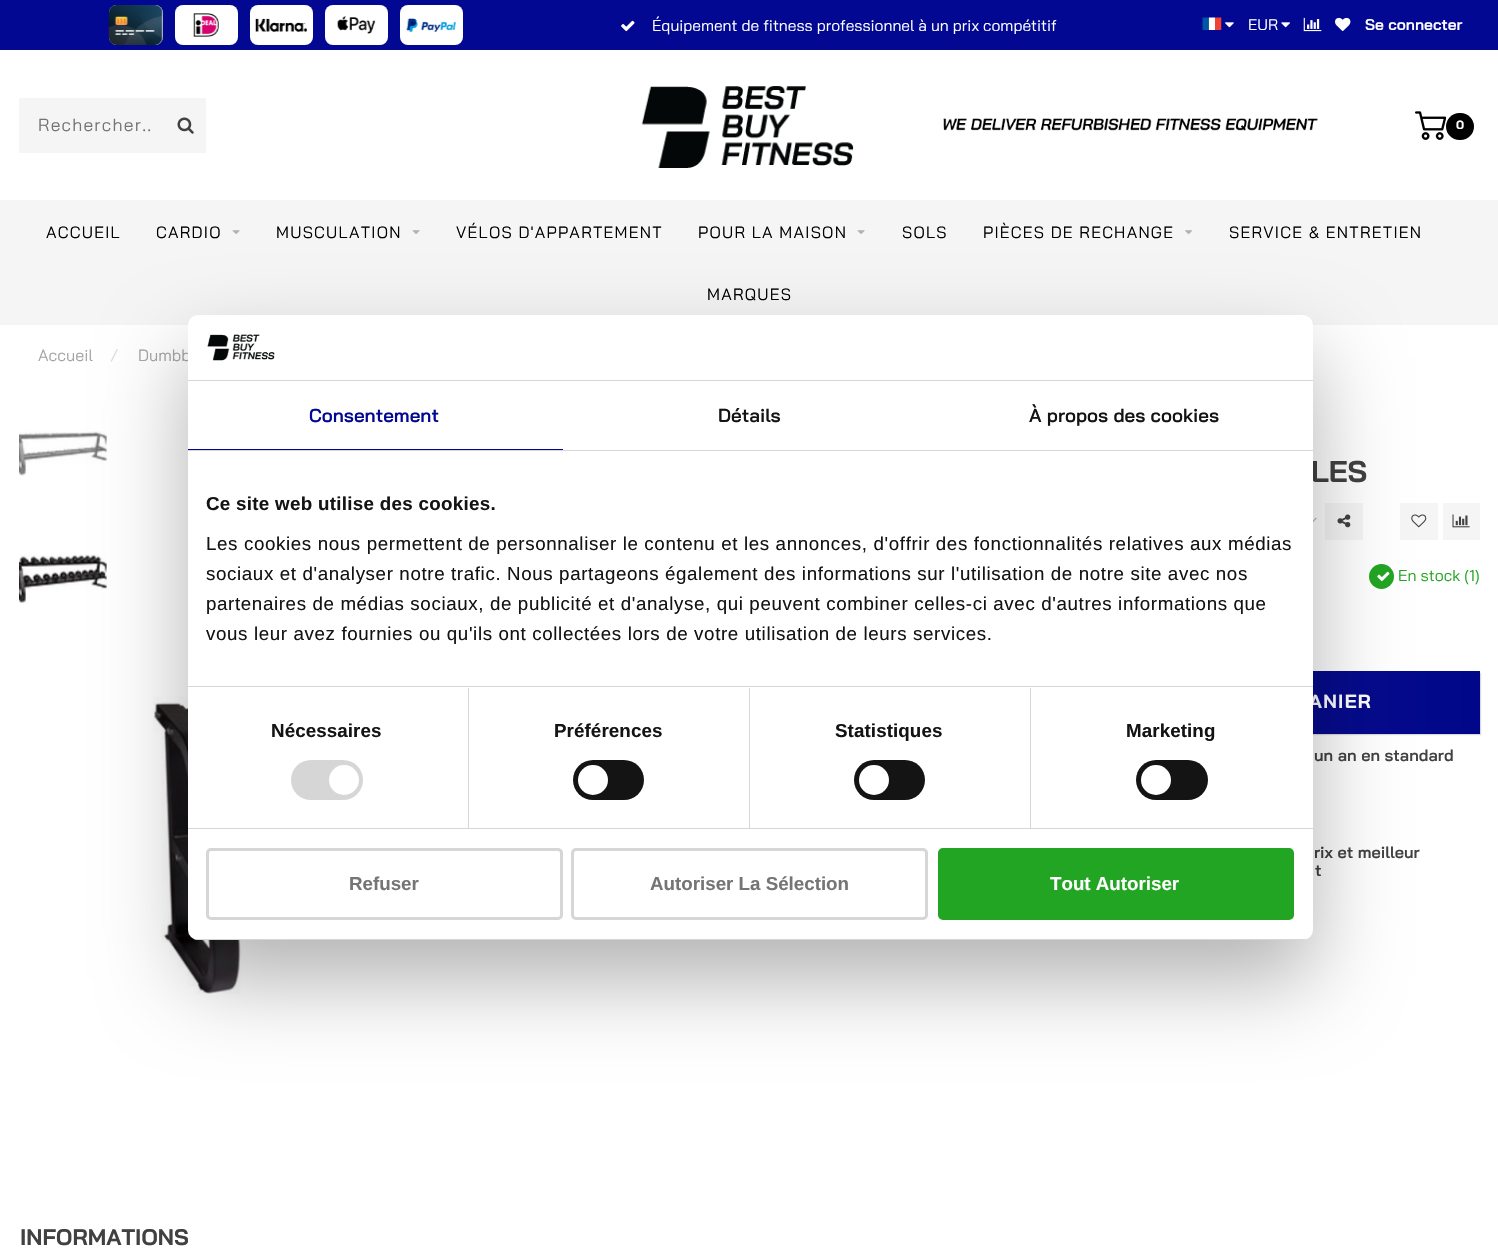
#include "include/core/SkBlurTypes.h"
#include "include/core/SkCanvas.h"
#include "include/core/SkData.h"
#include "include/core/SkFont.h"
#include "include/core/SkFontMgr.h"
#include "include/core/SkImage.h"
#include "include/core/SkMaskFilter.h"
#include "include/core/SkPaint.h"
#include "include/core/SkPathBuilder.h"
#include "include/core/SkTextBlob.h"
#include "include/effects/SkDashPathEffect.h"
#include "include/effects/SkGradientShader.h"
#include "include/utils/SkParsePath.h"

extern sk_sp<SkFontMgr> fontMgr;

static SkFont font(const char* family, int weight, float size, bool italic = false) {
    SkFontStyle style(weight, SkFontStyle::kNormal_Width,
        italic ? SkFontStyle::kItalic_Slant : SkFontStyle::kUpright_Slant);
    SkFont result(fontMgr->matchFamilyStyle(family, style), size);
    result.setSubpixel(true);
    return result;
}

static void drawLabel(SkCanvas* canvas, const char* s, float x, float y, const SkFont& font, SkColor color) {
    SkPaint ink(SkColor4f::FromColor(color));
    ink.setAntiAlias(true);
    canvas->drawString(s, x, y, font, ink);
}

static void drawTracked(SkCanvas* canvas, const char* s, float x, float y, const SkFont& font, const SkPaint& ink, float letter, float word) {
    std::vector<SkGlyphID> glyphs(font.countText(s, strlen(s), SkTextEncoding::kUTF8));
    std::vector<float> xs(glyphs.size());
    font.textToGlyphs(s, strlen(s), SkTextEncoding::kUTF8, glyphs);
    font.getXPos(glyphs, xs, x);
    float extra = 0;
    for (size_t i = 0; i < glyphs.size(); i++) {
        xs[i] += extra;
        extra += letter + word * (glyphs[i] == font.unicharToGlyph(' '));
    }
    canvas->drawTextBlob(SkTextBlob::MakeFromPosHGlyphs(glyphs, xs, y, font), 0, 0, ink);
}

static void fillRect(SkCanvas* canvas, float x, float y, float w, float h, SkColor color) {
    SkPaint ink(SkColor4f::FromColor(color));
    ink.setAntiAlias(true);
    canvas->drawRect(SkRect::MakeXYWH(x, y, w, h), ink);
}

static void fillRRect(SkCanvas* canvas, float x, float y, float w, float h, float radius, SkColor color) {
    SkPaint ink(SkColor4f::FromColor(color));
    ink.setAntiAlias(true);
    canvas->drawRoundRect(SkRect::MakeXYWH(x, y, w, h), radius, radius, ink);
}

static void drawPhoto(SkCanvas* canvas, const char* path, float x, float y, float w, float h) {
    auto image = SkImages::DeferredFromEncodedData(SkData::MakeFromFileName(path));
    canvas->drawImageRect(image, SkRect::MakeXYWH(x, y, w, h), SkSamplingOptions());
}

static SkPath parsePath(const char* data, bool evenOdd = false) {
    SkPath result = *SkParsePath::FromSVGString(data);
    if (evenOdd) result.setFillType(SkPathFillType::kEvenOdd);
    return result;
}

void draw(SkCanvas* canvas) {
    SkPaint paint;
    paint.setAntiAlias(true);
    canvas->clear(0xFFFFFFFF);
    fillRect(canvas, 0, 0, 1498, 50, 0xFF020891);
    fillRRect(canvas, 109, 5, 54, 40, 8, 0xFFFFFFFF);
    drawPhoto(canvas, "assets/img1.png", 108, 5, 55, 40);
    fillRRect(canvas, 175, 5, 63, 40, 8, 0xFFFFFFFF);
    drawPhoto(canvas, "assets/img2.png", 193, 13, 26, 24);
    fillRRect(canvas, 250, 5, 63, 40, 8, 0xFFFFFFFF);
    drawPhoto(canvas, "assets/img3.png", 255, 18, 53, 14);
    fillRRect(canvas, 325, 5, 63, 40, 8, 0xFFFFFFFF);
    drawPhoto(canvas, "assets/img4.png", 337, 16, 39, 18);
    fillRRect(canvas, 400, 5, 63, 40, 8, 0xFFFFFFFF);
    drawPhoto(canvas, "assets/img5.png", 406, 18, 50, 14);
    drawPhoto(canvas, "assets/img6.png", 621, 20, 14, 12);
    SkFont font1 = font("Bai Jamjuree", 400, 15.6f);
    drawLabel(canvas, "Équipement de fitness professionnel à un prix compétitif", 652, 31, font1, 0xFFFFFFFF);
    drawPhoto(canvas, "assets/img7.png", 1202, 17, 20, 13);
    drawPhoto(canvas, "assets/img8.png", 1225, 22, 9, 6);
    SkFont font2 = font("Bai Jamjuree", 400, 15.5f);
    drawLabel(canvas, "EUR", 1248, 30, font2, 0xFFFFFFFF);
    drawPhoto(canvas, "assets/img9.png", 1281, 22, 9, 6);
    drawPhoto(canvas, "assets/img10.png", 1303, 17, 19, 15);
    drawPhoto(canvas, "assets/img11.png", 1335, 17, 16, 15);
    SkFont font3 = font("Bai Jamjuree", 600, 15.5f);
    drawLabel(canvas, "Se connecter", 1365, 30, font3, 0xFFFFFFFF);
    fillRect(canvas, 19, 98, 187, 55, 0xFFF5F5F5);
    SkFont font4 = font("Bai Jamjuree", 400, 17.5f);
    paint.setColor(0xFF757575);
    drawTracked(canvas, "Rechercher..", 38, 131, font4, paint, 1.25f, 0);
    drawPhoto(canvas, "assets/img12.png", 177, 117, 17, 17);
    drawPhoto(canvas, "assets/img13.png", 641, 86, 213, 82);
    drawPhoto(canvas, "assets/img14.png", 943, 118, 375, 13);
    drawPhoto(canvas, "assets/img15.png", 1415, 111, 31, 29);
    fillRRect(canvas, 1446, 113, 28, 27, 13.5f, 0xFF000000);
    SkFont font5 = font("Bai Jamjuree", 700, 12);
    drawLabel(canvas, "0", 1456, 129, font5, 0xFFFFFFFF);
    fillRect(canvas, 0, 200, 1498, 125, 0xFFF5F5F5);
    SkFont font6 = font("Bai Jamjuree", 400, 16.25f);
    paint.setColor(0xFF000000);
    drawTracked(canvas, "ACCUEIL", 46, 238, font6, paint, 1.25f, 0);
    drawTracked(canvas, "CARDIO", 156, 238, font6, paint, 1.25f, 0);
    drawPhoto(canvas, "assets/img16.png", 232, 230, 8, 4);
    drawTracked(canvas, "MUSCULATION", 276, 238, font6, paint, 1.25f, 0);
    drawPhoto(canvas, "assets/img16.png", 412, 230, 8, 4);
    drawTracked(canvas, "VÉLOS D'APPARTEMENT", 456, 238, font6, paint, 1.25f, 0);
    drawTracked(canvas, "POUR LA MAISON", 698, 238, font6, paint, 1.25f, 0);
    drawPhoto(canvas, "assets/img16.png", 857, 230, 8, 4);
    drawTracked(canvas, "SOLS", 902, 238, font6, paint, 1.25f, 0);
    drawTracked(canvas, "PIÈCES DE RECHANGE", 983, 238, font6, paint, 1.25f, 0);
    drawPhoto(canvas, "assets/img17.png", 1185, 230, 7, 5);
    drawTracked(canvas, "SERVICE & ENTRETIEN", 1229, 238, font6, paint, 1.25f, 0);
    drawTracked(canvas, "MARQUES", 707, 300, font6, paint, 1.25f, 0);
    drawLabel(canvas, "Accueil", 38, 361, font6, 0xFFA5A5A5);
    paint.setColor(0xFFDDDDDD);
    drawTracked(canvas, "/", 110, 361, font6, paint, 1.25f, 0);
    drawLabel(canvas, "Dumbb", 138, 361, font6, 0xFFA5A5A5);
    drawPhoto(canvas, "assets/img18.png", 19, 431, 88, 45);
    drawPhoto(canvas, "assets/img19.png", 19, 554, 88, 49);
    drawPhoto(canvas, "assets/img20.png", 153, 695, 692, 299);
    SkFont font7 = font("Bai Jamjuree", 700, 30);
    drawLabel(canvas, "LES", 1311, 482, font7, 0xFF414141);
    drawPhoto(canvas, "assets/img21.png", 1313, 517, 4, 6);
    fillRect(canvas, 1325, 503, 38, 37, 0xFFF5F5F5);
    drawPhoto(canvas, "assets/img22.png", 1337, 514, 14, 14);
    fillRect(canvas, 1400, 503, 38, 37, 0xFFF5F5F5);
    drawPhoto(canvas, "assets/img23.png", 1411, 514, 16, 14);
    fillRect(canvas, 1443, 503, 37, 37, 0xFFF5F5F5);
    drawPhoto(canvas, "assets/img24.png", 1452, 514, 18, 14);
    paint.setColor(0xFF22A522);
    canvas->drawCircle(1381.5f, 576.5f, 12.5f, paint);
    drawPhoto(canvas, "assets/img25.png", 1377, 571, 13, 11);
    SkFont font8 = font("Bai Jamjuree", 400, 15.75f);
    drawLabel(canvas, "En stock (1)", 1398, 581, font8, 0xFF22A522);
    paint.setColor(0x26000000);
    paint.setMaskFilter(SkMaskFilter::MakeBlur(kNormal_SkBlurStyle, 0.5f));
    canvas->drawRect(SkRect::MakeXYWH(1009, 673, 472, 62), paint);
    paint.setMaskFilter(nullptr);
    {
        const SkColor colors[] = {0xFF0E1496, 0xFF010789};
        const float stops[] = {0, 1};
        const SkPoint ends[] = {{1008, 703}, {1480, 703}};
        paint.setShader(SkGradientShader::MakeLinear(ends, colors, stops, 2, SkTileMode::kClamp));
        paint.setAlpha(255);
    }
    canvas->drawRect(SkRect::MakeXYWH(1313, 671, 167, 63), paint);
    SkFont font9 = font("Bai Jamjuree", 700, 19);
    paint.setShader(nullptr);
    paint.setColor(0xFFFFFFFF);
    drawTracked(canvas, "ANIER", 1309, 708, font9, paint, 1.25f, 0);
    SkFont font10 = font("Bai Jamjuree", 600, 16.25f);
    drawLabel(canvas, "un an en standard", 1314, 761, font10, 0xFF414141);
    drawLabel(canvas, "rix et meilleur", 1314, 858, font10, 0xFF414141);
    drawLabel(canvas, "t", 1315, 876, font10, 0xFF414141);
    SkFont font11 = font("Bai Jamjuree", 700, 22.5f);
    drawLabel(canvas, "INFORMATIONS", 20, 1245, font11, 0xFF414141);
    paint.setColor(0x4D000000);
    paint.setMaskFilter(SkMaskFilter::MakeBlur(kNormal_SkBlurStyle, 42.5f));
    canvas->drawRoundRect(SkRect::MakeXYWH(188, 355, 1125, 625), 10, 10, paint);
    paint.setMaskFilter(nullptr);
    fillRRect(canvas, 188, 315, 1125, 625, 10, 0xFFFFFFFF);
    fillRect(canvas, 188, 380, 1125, 1, 0xFFD6D6D6);
    drawPhoto(canvas, "assets/img26.png", 207, 334, 68, 27);
    fillRect(canvas, 188, 450, 1125, 1, 0xFFD6D6D6);
    fillRect(canvas, 188, 449, 375, 1, 0xFF020891);
    SkFont font12 = font("Bai Jamjuree", 600, 18.75f);
    drawLabel(canvas, "Consentement", 309, 422, font12, 0xFF020891);
    drawLabel(canvas, "Détails", 718, 422, font12, 0xFF141414);
    drawLabel(canvas, "À propos des cookies", 1029, 422, font12, 0xFF141414);
    fillRect(canvas, 188, 686, 1125, 1, 0xFFD6D6D6);
    SkFont font13 = font("Liberation Sans", 700, 18.75f);
    paint.setColor(0xFF141414);
    drawTracked(canvas, "Ce site web utilise des cookies.", 206, 510, font13, paint, 0.3f, 0);
    SkFont font14 = font("Liberation Sans", 400, 18.75f);
    drawTracked(canvas, "Les cookies nous permettent de personnaliser le contenu et les annonces, d'offrir des fonctionnalités relatives aux médias", 206, 550, font14, paint, 0.62f, 0);
    drawTracked(canvas, "sociaux et d'analyser notre trafic. Nous partageons également des informations sur l'utilisation de notre site avec nos", 206, 580, font14, paint, 0.62f, 0);
    drawTracked(canvas, "partenaires de médias sociaux, de publicité et d'analyse, qui peuvent combiner celles-ci avec d'autres informations que", 206, 610, font14, paint, 0.62f, 0);
    drawTracked(canvas, "vous leur avez fournies ou qu'ils ont collectées lors de votre utilisation de leurs services.", 206, 640, font14, paint, 0.62f, 0);
    fillRect(canvas, 188, 828, 1125, 1, 0xFFD6D6D6);
    fillRect(canvas, 468, 688, 1, 140, 0xFFD6D6D6);
    drawTracked(canvas, "Nécessaires", 271, 737, font13, paint, 0.1f, 0);
    fillRRect(canvas, 291, 760, 72, 40, 20, 0xFFD6D6D6);
    paint.setColor(0xFFFFFFFF);
    canvas->drawCircle(344, 780, 15, paint);
    fillRect(canvas, 749, 688, 1, 140, 0xFFD6D6D6);
    paint.setColor(0xFF141414);
    drawTracked(canvas, "Préférences", 554, 737, font13, paint, 0.1f, 0);
    fillRRect(canvas, 573, 760, 71, 40, 20, 0xFF141414);
    paint.setColor(0xFFFFFFFF);
    canvas->drawCircle(593, 780, 15, paint);
    fillRect(canvas, 1030, 688, 1, 140, 0xFFD6D6D6);
    paint.setColor(0xFF141414);
    drawTracked(canvas, "Statistiques", 835, 737, font13, paint, 0.1f, 0);
    fillRRect(canvas, 854, 760, 71, 40, 20, 0xFF141414);
    paint.setColor(0xFFFFFFFF);
    canvas->drawCircle(874, 780, 15, paint);
    paint.setColor(0xFF141414);
    drawTracked(canvas, "Marketing", 1126, 737, font13, paint, 0.1f, 0);
    fillRRect(canvas, 1136, 760, 72, 40, 20, 0xFF141414);
    paint.setColor(0xFFFFFFFF);
    canvas->drawCircle(1156, 780, 15, paint);
    canvas->save();
    canvas->clipPath(parsePath("M198 315H1303C1308.5 315 1313 319.5 1313 325V930C1313 935.5 1308.5 940 1303 940H198C192.5 940 188 935.5 188 930V325C188 319.5 192.5 315 198 315Z"), true);
    fillRect(canvas, 188, 939, 1125, 1, 0xFFD6D6D6);
    canvas->restore();
    paint.setStroke(true);
    paint.setStrokeWidth(3);
    paint.setColor(0xFFD6D6D6);
    canvas->drawRoundRect(SkRect::MakeXYWH(207.5f, 849.5f, 354, 69), 3.5f, 3.5f, paint);
    drawLabel(canvas, "Refuser", 349, 890, font13, 0xFF757575);
    canvas->drawRoundRect(SkRect::MakeXYWH(572.5f, 849.5f, 354, 69), 3.5f, 3.5f, paint);
    drawLabel(canvas, "Autoriser La Sélection", 650, 890, font13, 0xFF757575);
    paint.setStroke(false);
    paint.setColor(0xFF22A522);
    canvas->drawRoundRect(SkRect::MakeXYWH(939.5f, 849.5f, 353, 69), 3.5f, 3.5f, paint);
    paint.setStroke(true);
    canvas->drawRoundRect(SkRect::MakeXYWH(939.5f, 849.5f, 353, 69), 3.5f, 3.5f, paint);
    drawLabel(canvas, "Tout Autoriser", 1050, 890, font13, 0xFFFFFFFF);
}
